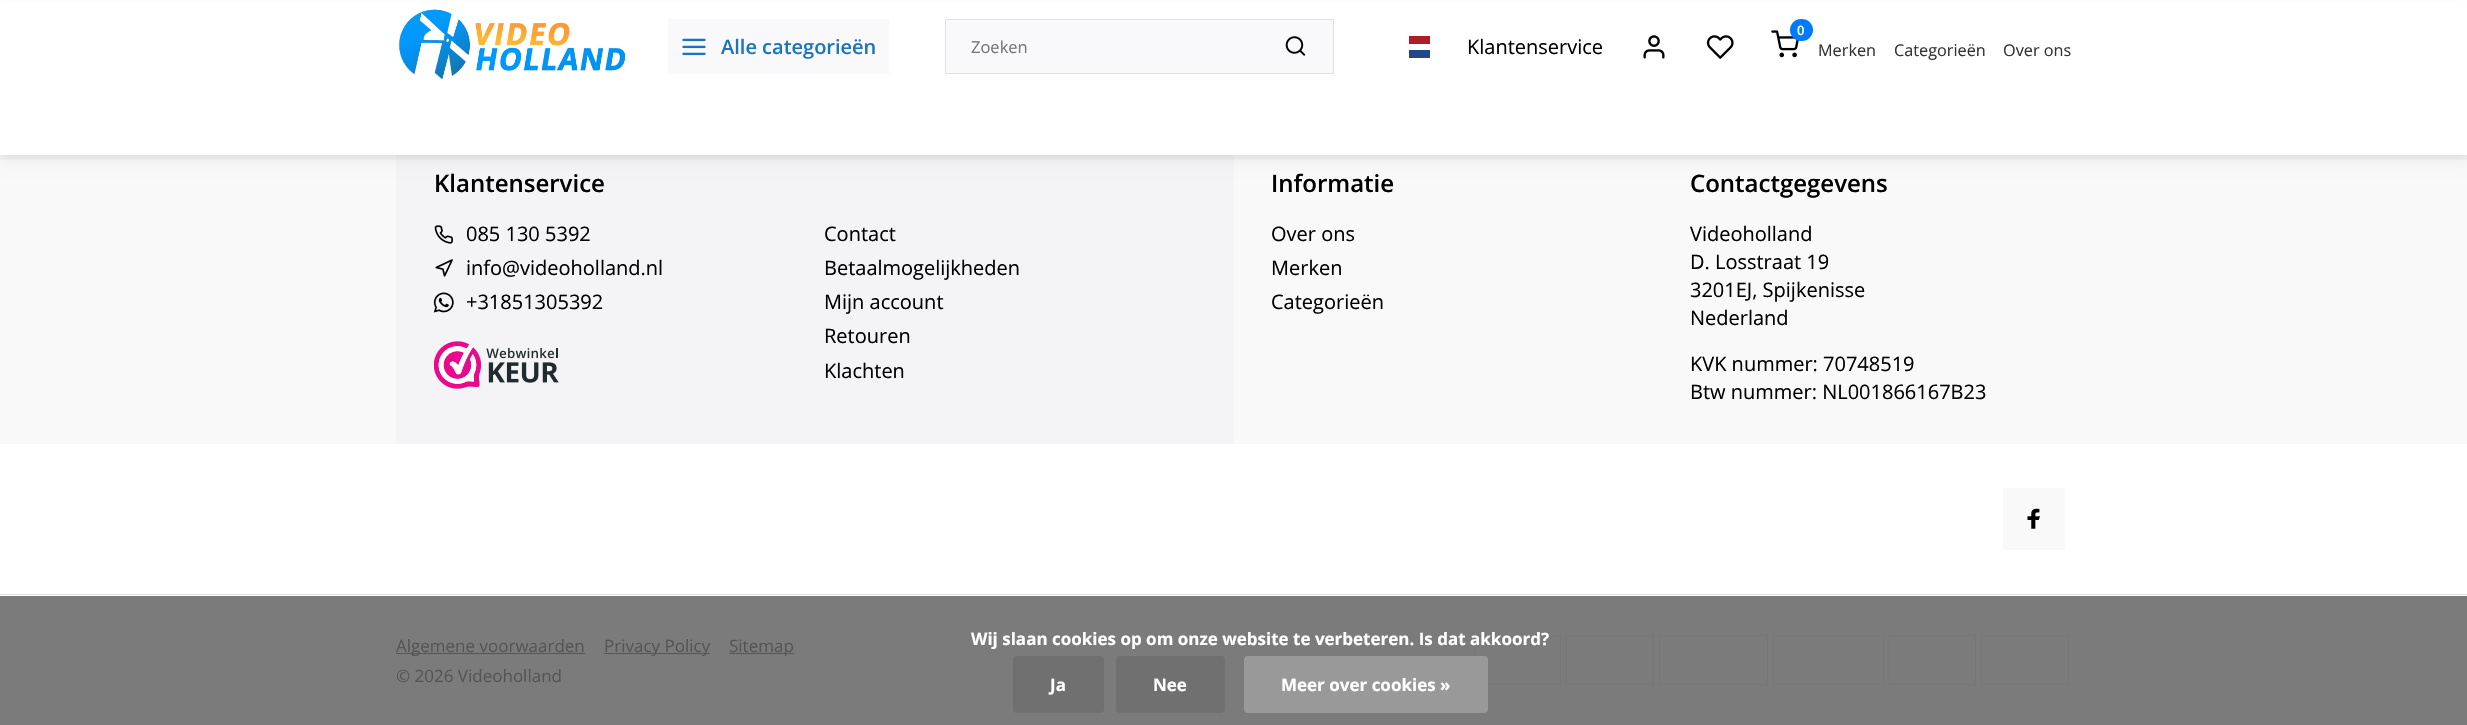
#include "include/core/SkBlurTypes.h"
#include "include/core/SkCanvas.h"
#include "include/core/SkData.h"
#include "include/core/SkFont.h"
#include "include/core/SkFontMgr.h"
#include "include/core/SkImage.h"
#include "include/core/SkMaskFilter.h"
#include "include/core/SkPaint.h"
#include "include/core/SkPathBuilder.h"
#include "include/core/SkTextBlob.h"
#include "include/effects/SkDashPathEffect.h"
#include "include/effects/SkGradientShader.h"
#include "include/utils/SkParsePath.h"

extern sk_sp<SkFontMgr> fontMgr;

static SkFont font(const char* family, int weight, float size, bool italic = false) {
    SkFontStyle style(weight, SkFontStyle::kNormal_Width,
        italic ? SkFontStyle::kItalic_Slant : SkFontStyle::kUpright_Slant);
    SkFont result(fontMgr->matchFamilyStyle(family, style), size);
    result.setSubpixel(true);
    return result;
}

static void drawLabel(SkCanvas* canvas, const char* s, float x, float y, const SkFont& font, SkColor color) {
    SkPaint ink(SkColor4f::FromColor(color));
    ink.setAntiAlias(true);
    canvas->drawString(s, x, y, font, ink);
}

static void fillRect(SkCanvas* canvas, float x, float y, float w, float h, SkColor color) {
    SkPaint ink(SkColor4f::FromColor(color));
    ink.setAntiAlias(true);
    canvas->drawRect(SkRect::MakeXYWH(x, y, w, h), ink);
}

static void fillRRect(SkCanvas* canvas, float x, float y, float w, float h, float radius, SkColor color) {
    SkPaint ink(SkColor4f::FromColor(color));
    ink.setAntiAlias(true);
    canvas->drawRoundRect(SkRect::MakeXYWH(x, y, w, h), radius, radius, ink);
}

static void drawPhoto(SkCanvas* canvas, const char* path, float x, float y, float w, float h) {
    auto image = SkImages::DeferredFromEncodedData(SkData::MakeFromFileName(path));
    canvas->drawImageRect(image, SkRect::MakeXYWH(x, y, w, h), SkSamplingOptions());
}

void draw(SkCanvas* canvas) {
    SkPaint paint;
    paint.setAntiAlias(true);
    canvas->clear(0xFFFFFFFF);
    fillRect(canvas, 0, 596, 2467, 129, 0xFF7B7B7B);
    fillRect(canvas, 0, 155, 2467, 289, 0xFFF9F9F9);
    fillRect(canvas, 396, 155, 838, 289, 0xFFF4F4F6);
    paint.setColor(0x0D000000);
    paint.setMaskFilter(SkMaskFilter::MakeBlur(kNormal_SkBlurStyle, 6));
    canvas->drawRect(SkRect::MakeXYWH(0, 6, 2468, 155), paint);
    paint.setMaskFilter(nullptr);
    fillRect(canvas, 0, 1, 2467, 154, 0xFFFFFFFF);
    canvas->save();
    canvas->clipRect(SkRect::MakeXYWH(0, 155, 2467, 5));
    paint.setMaskFilter(SkMaskFilter::MakeBlur(kNormal_SkBlurStyle, 2.5f));
    canvas->drawRect(SkRect::MakeXYWH(0, 4, 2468, 155), paint);
    paint.setMaskFilter(nullptr);
    canvas->restore();
    drawPhoto(canvas, "assets/img1.png", 399, 9, 227, 71);
    fillRect(canvas, 668, 19, 221, 55, 0xFFF9F9FB);
    drawPhoto(canvas, "assets/img2.png", 682, 38, 24, 18);
    SkFont font1 = font("Open Sans", 600, 20);
    drawLabel(canvas, "Alle categorieën", 721, 54, font1, 0xFF1C75BB);
    paint.setColor(0xFFF9F9FB);
    canvas->drawRect(SkRect::MakeXYWH(945.5f, 19.5f, 388, 54), paint);
    paint.setStroke(true);
    paint.setStrokeWidth(1);
    paint.setColor(0xFFE1E1E1);
    canvas->drawRect(SkRect::MakeXYWH(945.5f, 19.5f, 388, 54), paint);
    SkFont font2 = font("Open Sans", 400, 16.5f);
    drawLabel(canvas, "Zoeken", 971, 53, font2, 0xFF757575);
    drawPhoto(canvas, "assets/img3.png", 1285, 36, 21, 20);
    drawPhoto(canvas, "assets/img4.png", 1771, 30, 28, 28);
    fillRRect(canvas, 1790, 19, 23, 22, 11, 0xFF007AFF);
    SkFont font3 = font("Open Sans", 600, 13);
    drawLabel(canvas, "0", 1797, 35, font3, 0xFFFFFFFF);
    fillRect(canvas, 1409, 50, 21, 8, 0xFF21468B);
    fillRect(canvas, 1409, 36, 21, 8, 0xFFAE1C28);
    SkFont font4 = font("Open Sans", 400, 20);
    drawLabel(canvas, "Klantenservice", 1467, 54, font4, 0xFF000000);
    drawPhoto(canvas, "assets/img5.png", 1643, 35, 22, 24);
    drawPhoto(canvas, "assets/img6.png", 1706, 35, 28, 24);
    SkFont font5 = font("Open Sans", 400, 16.25f);
    drawLabel(canvas, "Merken", 1818, 56, font5, 0xFF333333);
    drawLabel(canvas, "Categorieën", 1894, 56, font5, 0xFF333333);
    drawLabel(canvas, "Over ons", 2003, 56, font5, 0xFF333333);
    SkFont font6 = font("Open Sans", 600, 24);
    drawLabel(canvas, "Klantenservice", 434, 192, font6, 0xFF000000);
    drawPhoto(canvas, "assets/img7.png", 434, 225, 19, 19);
    drawLabel(canvas, "085 130 5392", 466, 241, font4, 0xFF000000);
    drawPhoto(canvas, "assets/img8.png", 435, 259, 18, 18);
    drawLabel(canvas, "info@videoholland.nl", 466, 275, font4, 0xFF000000);
    drawPhoto(canvas, "assets/img9.png", 433, 292, 21, 21);
    drawLabel(canvas, "+31851305392", 466, 309, font4, 0xFF000000);
    drawPhoto(canvas, "assets/img10.png", 434, 341, 125, 48);
    drawLabel(canvas, "Contact", 824, 241, font4, 0xFF000000);
    drawLabel(canvas, "Betaalmogelijkheden", 824, 275, font4, 0xFF000000);
    drawLabel(canvas, "Mijn account", 824, 309, font4, 0xFF000000);
    drawLabel(canvas, "Retouren", 824, 343, font4, 0xFF000000);
    drawLabel(canvas, "Klachten", 824, 378, font4, 0xFF000000);
    drawLabel(canvas, "Informatie", 1271, 192, font6, 0xFF000000);
    drawLabel(canvas, "Over ons", 1271, 241, font4, 0xFF000000);
    drawLabel(canvas, "Merken", 1271, 275, font4, 0xFF000000);
    drawLabel(canvas, "Categorieën", 1271, 309, font4, 0xFF000000);
    drawLabel(canvas, "Contactgegevens", 1690, 192, font6, 0xFF000000);
    drawLabel(canvas, "Videoholland", 1690, 241, font4, 0xFF000000);
    drawLabel(canvas, "D. Losstraat 19", 1690, 269, font4, 0xFF000000);
    drawLabel(canvas, "3201EJ, Spijkenisse", 1690, 297, font4, 0xFF000000);
    drawLabel(canvas, "Nederland", 1690, 325, font4, 0xFF000000);
    drawLabel(canvas, "KVK nummer: 70748519", 1690, 371, font4, 0xFF000000);
    drawLabel(canvas, "Btw nummer: NL001866167B23", 1690, 399, font4, 0xFF000000);
    fillRect(canvas, 2003, 488, 62, 62, 0xFFF9F9F9);
    drawPhoto(canvas, "assets/img11.png", 2027, 508, 13, 21);
    fillRect(canvas, 0, 594, 2467, 1, 0xFFE1E1E1);
    fillRect(canvas, 396, 653, 189, 1, 0xFF555555);
    SkFont font7 = font("Open Sans", 400, 17);
    drawLabel(canvas, "Algemene voorwaarden", 396, 652, font7, 0xFF555555);
    fillRect(canvas, 604, 653, 106, 1, 0xFF555555);
    drawLabel(canvas, "Privacy Policy", 604, 652, font7, 0xFF555555);
    fillRect(canvas, 729, 653, 65, 1, 0xFF555555);
    drawLabel(canvas, "Sitemap", 729, 652, font7, 0xFF555555);
    drawLabel(canvas, "© 2026 Videoholland", 396, 682, font7, 0xFF555555);
    paint.setColor(0xFF777777);
    canvas->drawRect(SkRect::MakeXYWH(1474.5f, 635.5f, 86, 49), paint);
    canvas->drawRect(SkRect::MakeXYWH(1566.5f, 635.5f, 87, 49), paint);
    canvas->drawRect(SkRect::MakeXYWH(1659.5f, 635.5f, 108, 49), paint);
    canvas->drawRect(SkRect::MakeXYWH(1773.5f, 635.5f, 110, 49), paint);
    canvas->drawRect(SkRect::MakeXYWH(1889.5f, 635.5f, 86, 49), paint);
    canvas->drawRect(SkRect::MakeXYWH(1981.5f, 635.5f, 87, 49), paint);
    SkFont font8 = font("Open Sans", 700, 17);
    drawLabel(canvas, "Wij slaan cookies op om onze website te verbeteren. Is dat akkoord?", 971, 645, font8, 0xFFFFFFFF);
    fillRRect(canvas, 1013, 656, 91, 57, 4, 0xFF707070);
    drawLabel(canvas, "Ja", 1050, 691, font8, 0xFFFFFFFF);
    fillRRect(canvas, 1116, 656, 109, 57, 4, 0xFF707070);
    drawLabel(canvas, "Nee", 1153, 691, font8, 0xFFFFFFFF);
    fillRRect(canvas, 1244, 656, 244, 57, 4, 0xFF999999);
    drawLabel(canvas, "Meer over cookies »", 1281, 691, font8, 0xFFFFFFFF);
}
